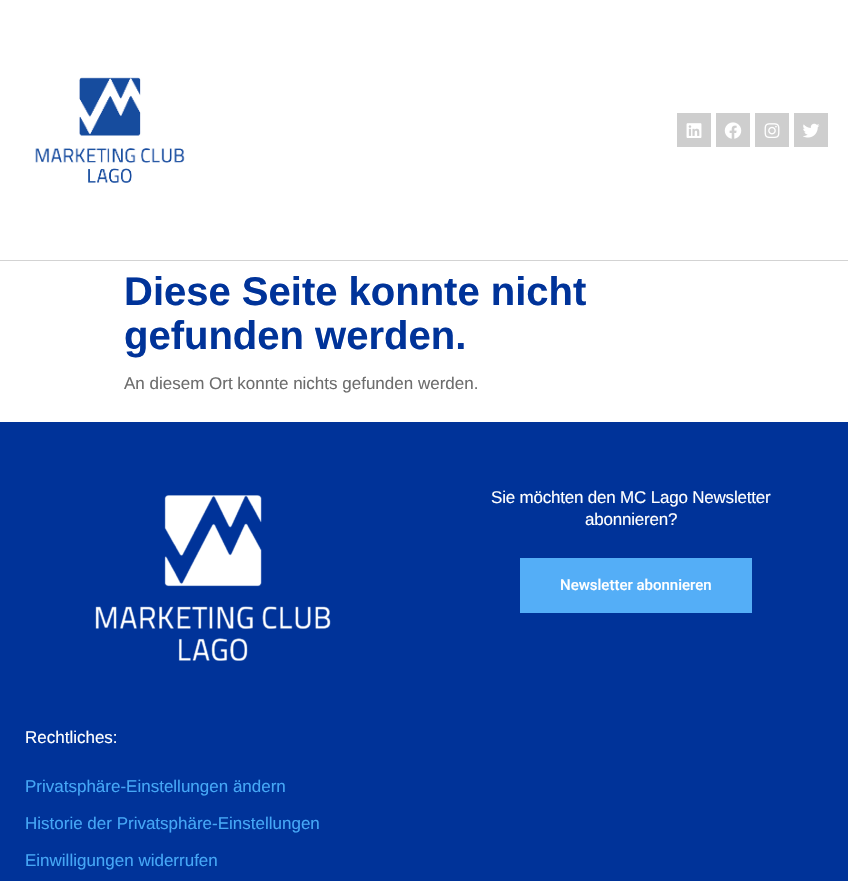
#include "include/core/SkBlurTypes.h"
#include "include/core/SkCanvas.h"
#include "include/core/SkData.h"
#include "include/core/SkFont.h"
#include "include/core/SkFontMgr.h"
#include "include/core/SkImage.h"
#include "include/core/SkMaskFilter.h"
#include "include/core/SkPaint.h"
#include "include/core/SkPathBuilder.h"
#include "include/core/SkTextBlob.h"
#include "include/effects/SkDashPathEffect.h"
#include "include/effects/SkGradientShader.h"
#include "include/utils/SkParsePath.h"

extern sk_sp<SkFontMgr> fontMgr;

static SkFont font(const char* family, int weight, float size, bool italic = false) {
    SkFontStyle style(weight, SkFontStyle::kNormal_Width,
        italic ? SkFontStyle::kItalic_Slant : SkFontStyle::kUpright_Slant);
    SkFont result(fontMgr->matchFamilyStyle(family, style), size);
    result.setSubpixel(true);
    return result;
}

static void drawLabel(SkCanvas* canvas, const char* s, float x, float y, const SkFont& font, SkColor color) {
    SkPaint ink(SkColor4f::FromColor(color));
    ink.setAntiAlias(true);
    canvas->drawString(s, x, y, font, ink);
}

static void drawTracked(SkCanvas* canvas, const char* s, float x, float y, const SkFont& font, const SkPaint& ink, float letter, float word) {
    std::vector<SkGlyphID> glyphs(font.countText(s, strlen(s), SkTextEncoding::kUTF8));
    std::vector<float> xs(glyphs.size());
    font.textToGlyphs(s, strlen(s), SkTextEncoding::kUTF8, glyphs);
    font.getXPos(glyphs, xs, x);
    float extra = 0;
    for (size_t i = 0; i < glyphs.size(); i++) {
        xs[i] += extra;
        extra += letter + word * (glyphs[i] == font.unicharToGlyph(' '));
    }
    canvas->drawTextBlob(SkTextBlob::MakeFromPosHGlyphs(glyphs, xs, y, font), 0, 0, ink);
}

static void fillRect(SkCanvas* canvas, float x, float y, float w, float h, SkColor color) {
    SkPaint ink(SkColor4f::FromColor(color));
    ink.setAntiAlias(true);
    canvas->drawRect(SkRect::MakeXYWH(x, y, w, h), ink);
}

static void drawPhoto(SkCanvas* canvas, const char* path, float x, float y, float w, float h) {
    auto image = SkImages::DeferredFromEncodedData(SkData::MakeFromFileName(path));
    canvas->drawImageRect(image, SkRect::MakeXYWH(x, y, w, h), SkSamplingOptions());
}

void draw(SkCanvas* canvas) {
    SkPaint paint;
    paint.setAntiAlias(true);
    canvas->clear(0xFFFFFFFF);
    fillRect(canvas, 0, 260, 848, 1, 0xFFD3D3D3);
    drawPhoto(canvas, "assets/img1.png", 35, 77, 150, 106);
    fillRect(canvas, 677, 113, 34, 34, 0xFFCECECE);
    drawPhoto(canvas, "assets/img2.png", 686, 123, 16, 15);
    fillRect(canvas, 716, 113, 34, 34, 0xFFCECECE);
    drawPhoto(canvas, "assets/img3.png", 724, 122, 18, 17);
    fillRect(canvas, 755, 113, 34, 34, 0xFFCECECE);
    drawPhoto(canvas, "assets/img4.png", 764, 123, 16, 15);
    fillRect(canvas, 794, 113, 34, 34, 0xFFCECECE);
    drawPhoto(canvas, "assets/img5.png", 803, 123, 17, 15);
    SkFont font1 = font("Liberation Sans", 700, 40);
    drawLabel(canvas, "Diese Seite konnte nicht", 124, 305, font1, 0xFF003399);
    drawLabel(canvas, "gefunden werden.", 124, 349, font1, 0xFF003399);
    SkFont font2 = font("Liberation Sans", 400, 17);
    drawLabel(canvas, "An diesem Ort konnte nichts gefunden werden.", 124, 389, font2, 0xFF6D6D6D);
    fillRect(canvas, 0, 422, 848, 459, 0xFF003399);
    drawPhoto(canvas, "assets/img6.png", 95, 495, 236, 166);
    paint.setColor(0xFFFFFFFF);
    drawTracked(canvas, "Sie möchten den MC Lago Newsletter", 491, 503, font2, paint, -0.2f, 0);
    drawTracked(canvas, "abonnieren?", 585, 525, font2, paint, -0.2f, 0);
    fillRect(canvas, 520, 558, 232, 55, 0xFF54AEF7);
    SkFont font3 = font("Roboto", 500, 15);
    drawLabel(canvas, "Newsletter abonnieren", 560, 590, font3, 0xFFFFFFFF);
    drawLabel(canvas, "Rechtliches:", 25, 743, font2, 0xFFFFFFFF);
    drawLabel(canvas, "Privatsphäre-Einstellungen ändern", 25, 792, font2, 0xFF45A7F6);
    drawLabel(canvas, "Historie der Privatsphäre-Einstellungen", 25, 829, font2, 0xFF45A7F6);
    drawLabel(canvas, "Einwilligungen widerrufen", 25, 866, font2, 0xFF45A7F6);
}
